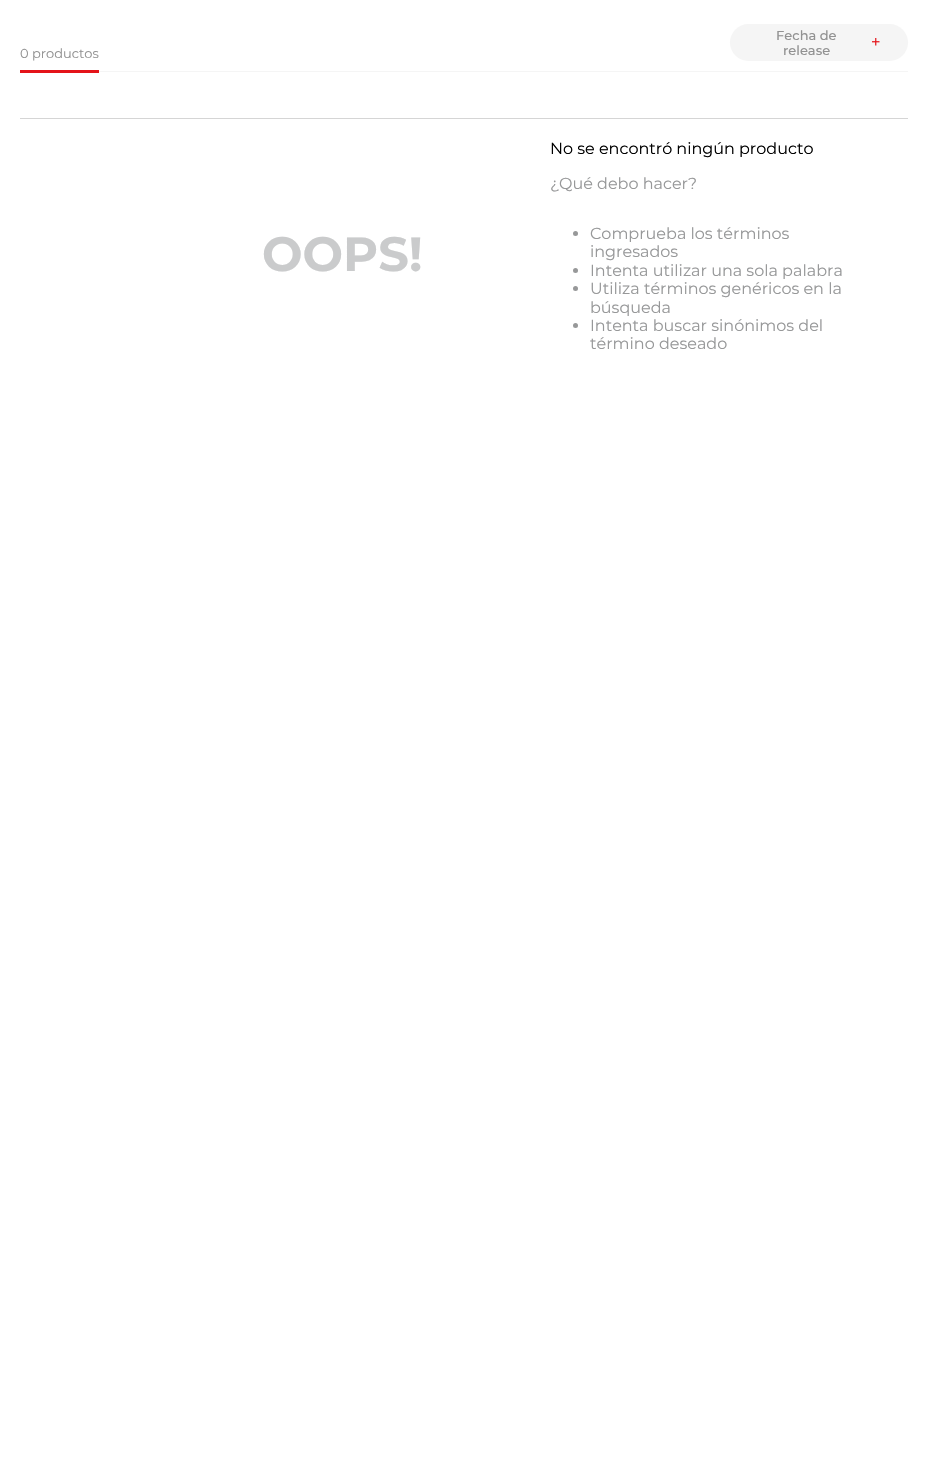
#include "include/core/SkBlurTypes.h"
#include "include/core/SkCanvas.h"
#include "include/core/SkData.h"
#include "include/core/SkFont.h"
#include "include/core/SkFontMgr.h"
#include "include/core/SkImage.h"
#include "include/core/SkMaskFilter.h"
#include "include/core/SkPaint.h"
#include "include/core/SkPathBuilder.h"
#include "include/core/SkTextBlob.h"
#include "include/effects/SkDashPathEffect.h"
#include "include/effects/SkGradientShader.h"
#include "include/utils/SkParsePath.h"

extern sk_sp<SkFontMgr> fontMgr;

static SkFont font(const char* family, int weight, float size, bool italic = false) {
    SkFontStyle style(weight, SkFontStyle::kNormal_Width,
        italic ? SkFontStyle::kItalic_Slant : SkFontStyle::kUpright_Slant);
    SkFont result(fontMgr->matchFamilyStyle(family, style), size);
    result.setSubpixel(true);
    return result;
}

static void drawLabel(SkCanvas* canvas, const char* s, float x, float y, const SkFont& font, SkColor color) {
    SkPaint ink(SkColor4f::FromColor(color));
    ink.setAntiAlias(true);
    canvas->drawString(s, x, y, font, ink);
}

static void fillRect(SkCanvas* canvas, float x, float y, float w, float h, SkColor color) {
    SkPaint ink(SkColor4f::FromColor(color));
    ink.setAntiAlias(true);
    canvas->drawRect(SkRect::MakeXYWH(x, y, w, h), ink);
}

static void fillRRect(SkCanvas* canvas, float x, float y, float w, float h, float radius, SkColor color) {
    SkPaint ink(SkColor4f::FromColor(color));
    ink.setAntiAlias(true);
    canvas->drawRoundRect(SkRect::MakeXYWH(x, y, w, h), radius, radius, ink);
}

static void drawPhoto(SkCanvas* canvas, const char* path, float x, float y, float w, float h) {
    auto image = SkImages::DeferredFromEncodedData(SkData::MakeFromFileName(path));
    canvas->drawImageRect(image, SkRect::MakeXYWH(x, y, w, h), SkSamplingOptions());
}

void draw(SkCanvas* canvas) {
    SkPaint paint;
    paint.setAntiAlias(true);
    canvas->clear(0xFFFFFFFF);
    fillRect(canvas, 20, 118, 888, 1, 0xFFD5D5D5);
    fillRect(canvas, 99, 71, 809, 1, 0xFFF5F5F5);
    SkFont font1 = font("Montserrat", 400, 13);
    drawLabel(canvas, "0 productos", 20, 58, font1, 0xFF929292);
    fillRect(canvas, 20, 70, 79, 3, 0xFFE41319);
    fillRRect(canvas, 730, 24, 178, 37, 18.5f, 0xFFF5F5F5);
    SkFont font2 = font("Montserrat", 500, 13);
    drawLabel(canvas, "Fecha de", 776, 40, font2, 0xFF929292);
    drawLabel(canvas, "release", 783, 55, font2, 0xFF929292);
    drawPhoto(canvas, "assets/img1.png", 872, 38, 8, 8);
    SkFont font3 = font("Montserrat", 700, 48);
    drawLabel(canvas, "OOPS!", 262, 271, font3, 0xFFCACBCC);
    SkFont font4 = font("Montserrat", 400, 16);
    drawLabel(canvas, "No se encontró ningún producto", 550, 154, font4, 0xFF000000);
    drawLabel(canvas, "¿Qué debo hacer?", 550, 189, font4, 0xFF979899);
    paint.setColor(0xFF979899);
    canvas->drawCircle(575.5f, 233.5f, 2.5f, paint);
    drawLabel(canvas, "Comprueba los términos", 590, 239, font4, 0xFF979899);
    drawLabel(canvas, "ingresados", 590, 257, font4, 0xFF979899);
    canvas->drawCircle(575.5f, 270.5f, 2.5f, paint);
    drawLabel(canvas, "Intenta utilizar una sola palabra", 590, 276, font4, 0xFF979899);
    canvas->drawCircle(575.5f, 288.5f, 2.5f, paint);
    drawLabel(canvas, "Utiliza términos genéricos en la", 590, 294, font4, 0xFF979899);
    drawLabel(canvas, "búsqueda", 590, 313, font4, 0xFF979899);
    canvas->drawCircle(575.5f, 325.5f, 2.5f, paint);
    drawLabel(canvas, "Intenta buscar sinónimos del", 590, 331, font4, 0xFF979899);
    drawLabel(canvas, "término deseado", 590, 349, font4, 0xFF979899);
}
